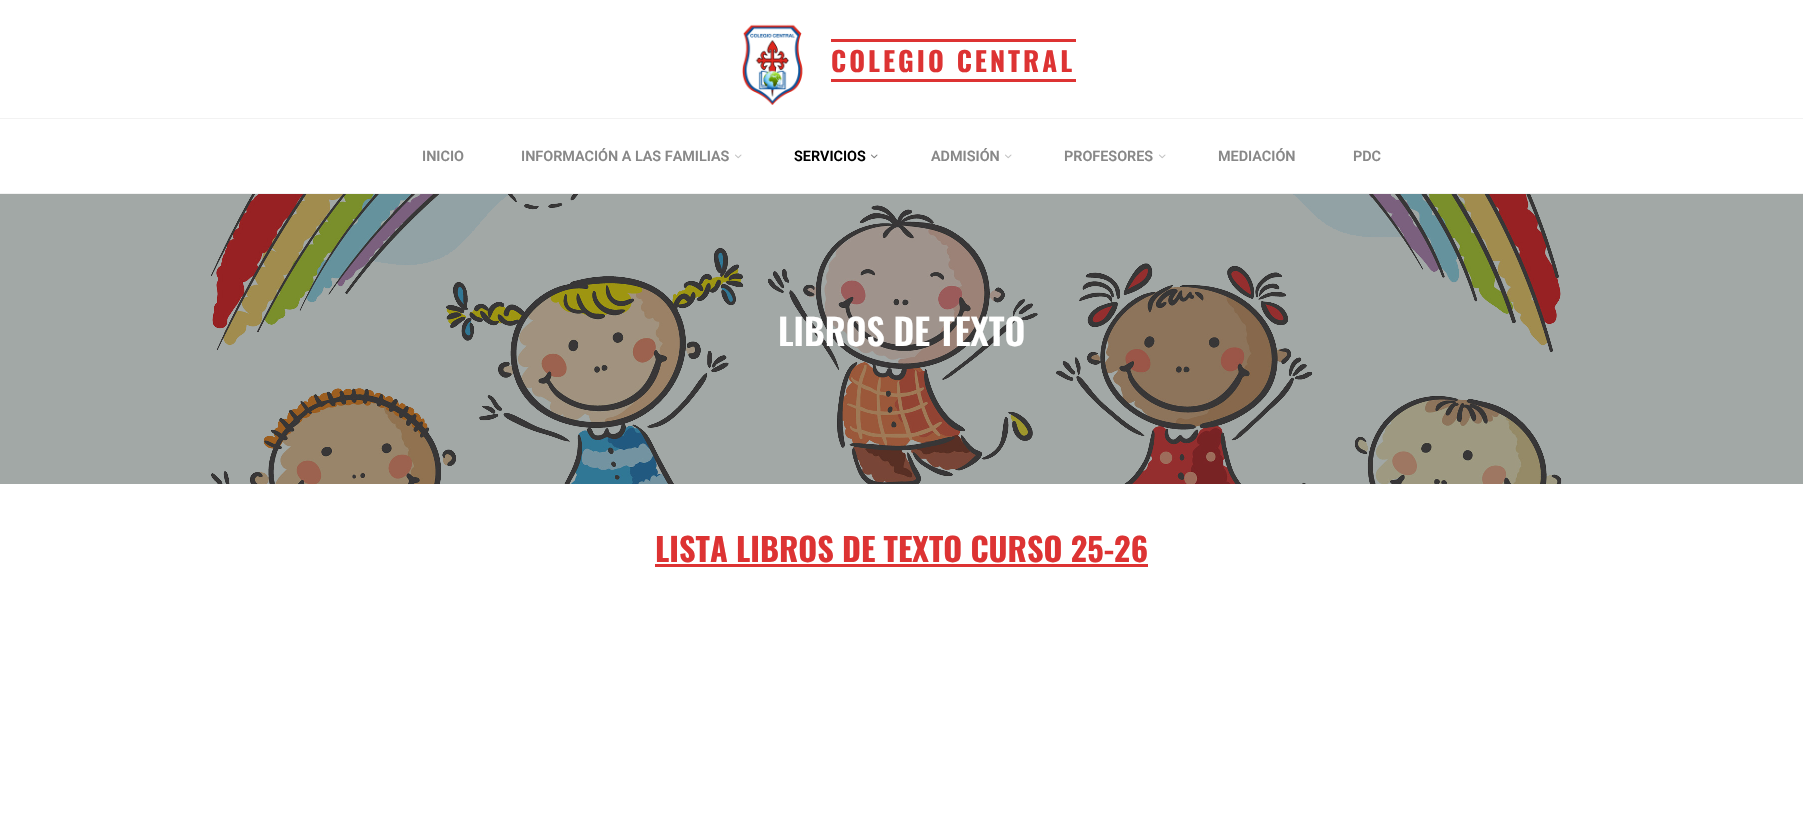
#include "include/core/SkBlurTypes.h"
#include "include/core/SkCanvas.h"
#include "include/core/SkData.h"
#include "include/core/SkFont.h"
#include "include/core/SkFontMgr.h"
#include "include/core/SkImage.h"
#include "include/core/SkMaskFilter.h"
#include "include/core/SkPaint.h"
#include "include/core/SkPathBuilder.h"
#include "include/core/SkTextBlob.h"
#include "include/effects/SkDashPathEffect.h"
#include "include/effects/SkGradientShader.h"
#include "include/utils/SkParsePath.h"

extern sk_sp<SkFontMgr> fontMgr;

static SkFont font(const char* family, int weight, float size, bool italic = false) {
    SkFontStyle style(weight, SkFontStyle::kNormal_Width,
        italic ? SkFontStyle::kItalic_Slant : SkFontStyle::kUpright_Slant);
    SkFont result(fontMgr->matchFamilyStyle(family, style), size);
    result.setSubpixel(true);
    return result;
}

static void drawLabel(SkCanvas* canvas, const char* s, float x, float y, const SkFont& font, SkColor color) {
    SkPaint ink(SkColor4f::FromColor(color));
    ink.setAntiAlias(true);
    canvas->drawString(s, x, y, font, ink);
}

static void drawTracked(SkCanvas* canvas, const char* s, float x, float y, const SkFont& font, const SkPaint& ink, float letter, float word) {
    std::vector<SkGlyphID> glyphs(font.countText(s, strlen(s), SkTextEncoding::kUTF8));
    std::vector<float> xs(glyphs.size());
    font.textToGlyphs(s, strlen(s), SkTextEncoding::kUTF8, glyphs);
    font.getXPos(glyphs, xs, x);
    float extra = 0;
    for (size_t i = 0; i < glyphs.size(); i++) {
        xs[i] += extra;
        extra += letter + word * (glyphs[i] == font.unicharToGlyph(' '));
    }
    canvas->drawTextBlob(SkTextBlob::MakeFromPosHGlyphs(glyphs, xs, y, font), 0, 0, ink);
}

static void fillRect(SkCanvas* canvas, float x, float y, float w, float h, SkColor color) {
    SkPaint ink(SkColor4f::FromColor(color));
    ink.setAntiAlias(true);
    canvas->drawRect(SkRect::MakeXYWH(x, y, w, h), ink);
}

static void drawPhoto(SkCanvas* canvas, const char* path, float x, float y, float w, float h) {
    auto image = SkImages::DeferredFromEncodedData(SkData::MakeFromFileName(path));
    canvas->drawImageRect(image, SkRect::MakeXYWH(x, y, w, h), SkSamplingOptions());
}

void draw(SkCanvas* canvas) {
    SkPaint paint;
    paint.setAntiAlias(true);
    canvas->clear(0xFFFFFFFF);
    fillRect(canvas, 0, 194, 1803, 290, 0xFFA2A8A6);
    drawPhoto(canvas, "assets/img1.png", 742, 24, 61, 81);
    fillRect(canvas, 831, 39, 245, 3, 0xFFDD3333);
    SkFont font1 = font("Oswald", 700, 27);
    paint.setColor(0xFFDD3333);
    drawTracked(canvas, "COLEGIO CENTRAL", 831, 72, font1, paint, 3, 0);
    fillRect(canvas, 831, 79, 245, 3, 0xFFDD3333);
    fillRect(canvas, 0, 118, 1803, 1, 0xFFF2F2F2);
    fillRect(canvas, 0, 193, 1803, 1, 0xFFF2F2F2);
    SkFont font2 = font("Roboto", 600, 14.4f);
    drawLabel(canvas, "INICIO", 422, 161, font2, 0xFF888888);
    drawLabel(canvas, "INFORMACIÓN A LAS FAMILIAS", 521, 161, font2, 0xFF888888);
    drawPhoto(canvas, "assets/img2.png", 735, 154, 7, 5);
    drawLabel(canvas, "SERVICIOS", 794, 161, font2, 0xFF000000);
    drawPhoto(canvas, "assets/img3.png", 871, 154, 7, 5);
    drawLabel(canvas, "ADMISIÓN", 931, 161, font2, 0xFF888888);
    drawPhoto(canvas, "assets/img2.png", 1005, 154, 7, 5);
    drawLabel(canvas, "PROFESORES", 1064, 161, font2, 0xFF888888);
    drawPhoto(canvas, "assets/img2.png", 1159, 154, 7, 5);
    drawLabel(canvas, "MEDIACIÓN", 1218, 161, font2, 0xFF888888);
    drawLabel(canvas, "PDC", 1353, 161, font2, 0xFF888888);
    drawPhoto(canvas, "assets/img4.png", 211, 194, 1351, 290);
    SkFont font3 = font("Oswald", 600, 36);
    drawLabel(canvas, "LIBROS DE TEXTO", 778, 346, font3, 0xFFFFFFFF);
    SkFont font4 = font("Oswald", 700, 32.25f);
    drawLabel(canvas, "LISTA LIBROS DE TEXTO CURSO 25-26", 655, 562, font4, 0xFFDD3333);
    fillRect(canvas, 655, 564, 493, 3, 0xFFDD3333);
}
